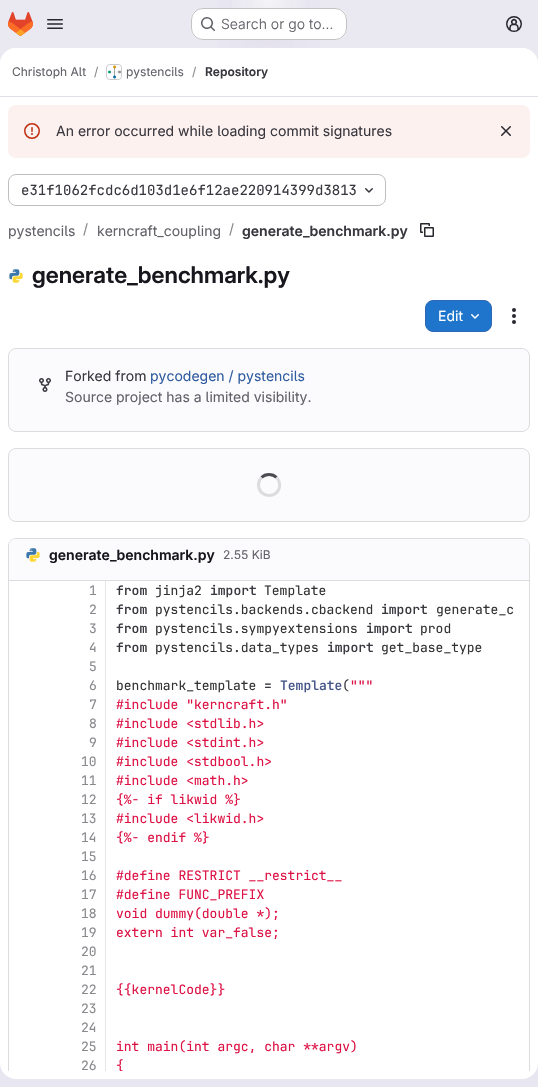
#include "include/core/SkBlurTypes.h"
#include "include/core/SkCanvas.h"
#include "include/core/SkData.h"
#include "include/core/SkFont.h"
#include "include/core/SkFontMgr.h"
#include "include/core/SkImage.h"
#include "include/core/SkMaskFilter.h"
#include "include/core/SkPaint.h"
#include "include/core/SkPathBuilder.h"
#include "include/core/SkTextBlob.h"
#include "include/effects/SkDashPathEffect.h"
#include "include/effects/SkGradientShader.h"
#include "include/utils/SkParsePath.h"

extern sk_sp<SkFontMgr> fontMgr;

static SkFont font(const char* family, int weight, float size, bool italic = false) {
    SkFontStyle style(weight, SkFontStyle::kNormal_Width,
        italic ? SkFontStyle::kItalic_Slant : SkFontStyle::kUpright_Slant);
    SkFont result(fontMgr->matchFamilyStyle(family, style), size);
    result.setSubpixel(true);
    return result;
}

static void drawLabel(SkCanvas* canvas, const char* s, float x, float y, const SkFont& font, SkColor color) {
    SkPaint ink(SkColor4f::FromColor(color));
    ink.setAntiAlias(true);
    canvas->drawString(s, x, y, font, ink);
}

static void fillRect(SkCanvas* canvas, float x, float y, float w, float h, SkColor color) {
    SkPaint ink(SkColor4f::FromColor(color));
    ink.setAntiAlias(true);
    canvas->drawRect(SkRect::MakeXYWH(x, y, w, h), ink);
}

static void fillRRect(SkCanvas* canvas, float x, float y, float w, float h, float radius, SkColor color) {
    SkPaint ink(SkColor4f::FromColor(color));
    ink.setAntiAlias(true);
    canvas->drawRoundRect(SkRect::MakeXYWH(x, y, w, h), radius, radius, ink);
}

static void drawPhoto(SkCanvas* canvas, const char* path, float x, float y, float w, float h) {
    auto image = SkImages::DeferredFromEncodedData(SkData::MakeFromFileName(path));
    canvas->drawImageRect(image, SkRect::MakeXYWH(x, y, w, h), SkSamplingOptions());
}

static SkPath parsePath(const char* data, bool evenOdd = false) {
    SkPath result = *SkParsePath::FromSVGString(data);
    if (evenOdd) result.setFillType(SkPathFillType::kEvenOdd);
    return result;
}

void draw(SkCanvas* canvas) {
    SkPaint paint;
    paint.setAntiAlias(true);
    canvas->clear(0xFFFFFFFF);
    {
        const SkColor colors[] = {0xFFE8E6F0, 0xFFEAE9F2};
        const float stops[] = {0, 0.7f};
        const SkPoint ends[] = {{370, 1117}, {168, -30}};
        paint.setShader(SkGradientShader::MakeLinear(ends, colors, stops, 2, SkTileMode::kClamp));
        paint.setAlpha(255);
    }
    canvas->drawRect(SkRect::MakeXYWH(0, 0, 538, 1087), paint);
    {
        const SkColor colors[] = {0xFFE4E2ED, 0x00E4E2ED};
        const float stops[] = {0, 0.26f};
        SkMatrix m = SkMatrix::Translate(269, 0).preScale(269, 1087);
        paint.setShader(SkGradientShader::MakeRadial({0, 0}, 1, colors, stops, 2, SkTileMode::kClamp, 0, &m));
        paint.setAlpha(255);
    }
    canvas->drawRect(SkRect::MakeXYWH(218, 0, 102, 48), paint);
    {
        const SkColor colors[] = {0xFFE4E2EC, 0x00E4E2EC};
        const float stops[] = {0, 0.19f};
        SkMatrix m = SkMatrix::Translate(269, 0).preScale(269, 1087);
        paint.setShader(SkGradientShader::MakeRadial({0, 0}, 1, colors, stops, 2, SkTileMode::kClamp, 0, &m));
        paint.setAlpha(255);
    }
    canvas->drawRect(SkRect::MakeXYWH(245, 0, 48, 46), paint);
    {
        const SkColor colors[] = {0x99FFFFFF, 0x00FFFFFF};
        const float stops[] = {0, 0.04f};
        paint.setShader(SkGradientShader::MakeRadial({269, 0}, 1120, colors, stops, 2, SkTileMode::kClamp));
        paint.setAlpha(255);
    }
    canvas->drawRect(SkRect::MakeXYWH(232, 0, 74, 38), paint);
    drawPhoto(canvas, "assets/img1.png", 8, 12, 25, 24);
    drawPhoto(canvas, "assets/img2.png", 47, 19, 16, 10);
    fillRRect(canvas, 191, 8, 156, 32, 12, 0xFFFFFFFF);
    paint.setStroke(true);
    paint.setStrokeWidth(1);
    paint.setShader(nullptr);
    paint.setColor(0x3D050506);
    canvas->drawRoundRect(SkRect::MakeXYWH(191.5f, 8.5f, 155, 31), 11.5f, 11.5f, paint);
    drawPhoto(canvas, "assets/img3.png", 201, 17, 14, 14);
    SkFont font1 = font("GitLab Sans", 300, 14);
    drawLabel(canvas, "Search or go to…", 221, 29, font1, 0xFF626168);
    drawPhoto(canvas, "assets/img4.png", 506, 16, 16, 16);
    fillRRect(canvas, 0, 48, 538, 1031, 16, 0xFFFFFFFF);
    paint.setStroke(false);
    paint.setColor(0xFFFFFFFF);
    canvas->drawPath(parsePath("M16 48H522C531 48 538 55 538 64V97H0V64C0 55 7 48 16 48Z"), paint);
    fillRect(canvas, 0, 96, 538, 1, 0xFFE1DFEC);
    SkFont font2 = font("GitLab Sans", 400, 12);
    drawLabel(canvas, "Christoph Alt", 12, 76, font2, 0xFF626168);
    drawLabel(canvas, "/", 94, 76, font2, 0xFF89888D);
    paint.setStroke(true);
    paint.setColor(0xFFDCDCDE);
    canvas->drawRoundRect(SkRect::MakeXYWH(106.5f, 64.5f, 15, 15), 3.5f, 3.5f, paint);
    drawPhoto(canvas, "assets/img5.png", 108, 65, 13, 14);
    paint.setColor(0x14050506);
    canvas->drawRoundRect(SkRect::MakeXYWH(106.5f, 64.5f, 15, 15), 3.5f, 3.5f, paint);
    drawLabel(canvas, "pystencils", 126, 76, font2, 0xFF626168);
    drawLabel(canvas, "/", 192, 76, font2, 0xFF89888D);
    SkFont font3 = font("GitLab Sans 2", 600, 12);
    drawLabel(canvas, "Repository", 205, 76, font3, 0xFF3A383F);
    fillRRect(canvas, 8, 105, 522, 53, 8, 0xFFFCF1EF);
    drawPhoto(canvas, "assets/img6.png", 24, 123, 16, 16);
    SkFont font4 = font("GitLab Sans", 400, 14);
    drawLabel(canvas, "An error occurred while loading commit signatures", 56, 136, font4, 0xFF3A383F);
    drawPhoto(canvas, "assets/img7.png", 501, 126, 10, 10);
    paint.setColor(0xFFBFBFC3);
    canvas->drawRoundRect(SkRect::MakeXYWH(8.5f, 174.5f, 377, 31), 7.5f, 7.5f, paint);
    SkFont font5 = font("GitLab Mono", 400, 14);
    drawLabel(canvas, "e31f1062fcdc6d103d1e6f12ae220914399d3813", 21, 195, font5, 0xFF3A383F);
    drawPhoto(canvas, "assets/img8.png", 365, 188, 8, 5);
    drawLabel(canvas, "pystencils", 8, 236, font4, 0xFF626168);
    drawLabel(canvas, "/", 83, 234, font4, 0xFF89888D);
    drawLabel(canvas, "kerncraft_coupling", 97, 236, font4, 0xFF626168);
    drawLabel(canvas, "/", 229, 234, font4, 0xFF89888D);
    SkFont font6 = font("GitLab Sans 2", 600, 14);
    drawLabel(canvas, "generate_benchmark.py", 242, 236, font6, 0xFF3A383F);
    drawPhoto(canvas, "assets/img9.png", 420, 223, 14, 14);
    drawPhoto(canvas, "assets/img10.png", 9, 269, 14, 14);
    SkFont font7 = font("GitLab Sans", 600, 23);
    drawLabel(canvas, "generate_benchmark.py", 32, 283, font7, 0xFF18171D);
    paint.setStroke(false);
    paint.setColor(0xFF1F75CB);
    canvas->drawRoundRect(SkRect::MakeXYWH(425.5f, 300.5f, 66, 31), 7.5f, 7.5f, paint);
    paint.setStroke(true);
    paint.setColor(0xFF2F68B4);
    canvas->drawRoundRect(SkRect::MakeXYWH(425.5f, 300.5f, 66, 31), 7.5f, 7.5f, paint);
    drawLabel(canvas, "Edit", 438, 321, font4, 0xFFFFFFFF);
    drawPhoto(canvas, "assets/img11.png", 471, 314, 8, 5);
    drawPhoto(canvas, "assets/img12.png", 512, 308, 4, 16);
    paint.setStroke(false);
    paint.setColor(0xFFFBFAFD);
    canvas->drawRoundRect(SkRect::MakeXYWH(8.5f, 348.5f, 521, 83), 7.5f, 7.5f, paint);
    paint.setStroke(true);
    paint.setColor(0xFFDCDCDE);
    canvas->drawRoundRect(SkRect::MakeXYWH(8.5f, 348.5f, 521, 83), 7.5f, 7.5f, paint);
    drawPhoto(canvas, "assets/img13.png", 39, 378, 12, 14);
    drawLabel(canvas, "Forked from", 65, 381, font4, 0xFF3A383F);
    drawLabel(canvas, "pycodegen / pystencils", 150, 381, font4, 0xFF2F5CA0);
    drawLabel(canvas, "Source project has a limited visibility.", 65, 402, font4, 0xFF626168);
    paint.setStroke(false);
    paint.setColor(0xFFFBFAFD);
    canvas->drawRoundRect(SkRect::MakeXYWH(8.5f, 448.5f, 521, 73), 7.5f, 7.5f, paint);
    paint.setStroke(true);
    paint.setColor(0xFFDCDCDE);
    canvas->drawRoundRect(SkRect::MakeXYWH(8.5f, 448.5f, 521, 73), 7.5f, 7.5f, paint);
    paint.setStrokeWidth(3);
    paint.setColor(0xFF4C4B51);
    canvas->drawPath(parsePath("M261.5 477.5C265.5 473.5 272.5 473.5 276.5 477.5"), paint);
    paint.setColor(0xFFDCDCDE);
    canvas->drawPath(parsePath("M276.5 477.5C279 480 280 483.5 279.5 487C277 499.5 258.5 497.5 258.5 485C258.5 482 259.5 479.5 261.5 477.5"), paint);
    canvas->save();
    canvas->clipRect(SkRect::MakeXYWH(0, 97, 538, 974));
    paint.setStroke(false);
    canvas->drawPath(parsePath("M16 538C12 538 8 542 8 546V1077H9V546C9 542 12 539 16 539H522C526 539 529 542 529 546V1077H530V546C530 542 526 538 522 538Z"), paint);
    canvas->restore();
    paint.setColor(0xFFFBFAFD);
    canvas->drawPath(parsePath("M16 539H522C526 539 529 542 529 546V581H9V546C9 542 12 539 16 539Z"), paint);
    fillRect(canvas, 9, 580, 520, 1, 0xFFDCDCDE);
    drawPhoto(canvas, "assets/img14.png", 26, 548, 14, 14);
    drawLabel(canvas, "generate_benchmark.py", 49, 560, font6, 0xFF18171D);
    drawLabel(canvas, "2.55 KiB", 223, 559, font2, 0xFF626168);
    SkFont font8 = font("GitLab Mono", 400, 13);
    drawLabel(canvas, "1", 89, 595, font8, 0xFF89888D);
    drawLabel(canvas, "2", 89, 614, font8, 0xFF89888D);
    drawLabel(canvas, "3", 89, 633, font8, 0xFF89888D);
    drawLabel(canvas, "4", 89, 652, font8, 0xFF89888D);
    drawLabel(canvas, "5", 89, 671, font8, 0xFF89888D);
    drawLabel(canvas, "6", 89, 690, font8, 0xFF89888D);
    drawLabel(canvas, "7", 89, 709, font8, 0xFF89888D);
    drawLabel(canvas, "8", 89, 728, font8, 0xFF89888D);
    drawLabel(canvas, "9", 89, 747, font8, 0xFF89888D);
    drawLabel(canvas, "10", 81, 766, font8, 0xFF89888D);
    drawLabel(canvas, "11", 81, 785, font8, 0xFF89888D);
    drawLabel(canvas, "12", 81, 804, font8, 0xFF89888D);
    drawLabel(canvas, "13", 81, 823, font8, 0xFF89888D);
    drawLabel(canvas, "14", 81, 842, font8, 0xFF89888D);
    drawLabel(canvas, "15", 81, 861, font8, 0xFF89888D);
    drawLabel(canvas, "16", 81, 880, font8, 0xFF89888D);
    drawLabel(canvas, "17", 81, 899, font8, 0xFF89888D);
    drawLabel(canvas, "18", 81, 918, font8, 0xFF89888D);
    drawLabel(canvas, "19", 81, 937, font8, 0xFF89888D);
    drawLabel(canvas, "20", 81, 956, font8, 0xFF89888D);
    drawLabel(canvas, "21", 81, 975, font8, 0xFF89888D);
    drawLabel(canvas, "22", 81, 994, font8, 0xFF89888D);
    drawLabel(canvas, "23", 81, 1013, font8, 0xFF89888D);
    drawLabel(canvas, "24", 81, 1032, font8, 0xFF89888D);
    drawLabel(canvas, "25", 81, 1051, font8, 0xFF89888D);
    drawLabel(canvas, "26", 81, 1070, font8, 0xFF89888D);
    fillRect(canvas, 105, 581, 1, 490, 0xFFE6E6E6);
    SkFont font9 = font("GitLab Mono", 600, 13);
    drawLabel(canvas, "from", 116, 595, font9, 0xFF3A383F);
    drawLabel(canvas, "jinja2", 155, 595, font8, 0xFF333333);
    drawLabel(canvas, "import", 210, 595, font9, 0xFF3A383F);
    drawLabel(canvas, "Template", 264, 595, font8, 0xFF333333);
    drawLabel(canvas, "from", 116, 614, font9, 0xFF3A383F);
    drawLabel(canvas, "pystencils.backends.cbackend", 155, 614, font8, 0xFF333333);
    drawLabel(canvas, "import", 381, 614, font9, 0xFF3A383F);
    drawLabel(canvas, "generate_c", 436, 614, font8, 0xFF333333);
    drawLabel(canvas, "from", 116, 633, font9, 0xFF3A383F);
    drawLabel(canvas, "pystencils.sympyextensions", 155, 633, font8, 0xFF333333);
    drawLabel(canvas, "import", 366, 633, font9, 0xFF3A383F);
    drawLabel(canvas, "prod", 420, 633, font8, 0xFF333333);
    drawLabel(canvas, "from", 116, 652, font9, 0xFF3A383F);
    drawLabel(canvas, "pystencils.data_types", 155, 652, font8, 0xFF333333);
    drawLabel(canvas, "import", 327, 652, font9, 0xFF3A383F);
    drawLabel(canvas, "get_base_type", 381, 652, font8, 0xFF333333);
    drawLabel(canvas, "benchmark_template", 116, 690, font8, 0xFF333333);
    drawLabel(canvas, "Template", 280, 690, font9, 0xFF445588);
    drawLabel(canvas, "(", 342, 690, font8, 0xFF3A383F);
    drawLabel(canvas, "\"\"\"", 350, 690, font8, 0xFFDD1144);
    drawLabel(canvas, "=", 264, 690, font9, 0xFF3A383F);
    drawLabel(canvas, "#include \"kerncraft.h\"", 116, 709, font8, 0xFFDD1144);
    drawLabel(canvas, "#include <stdlib.h>", 116, 728, font8, 0xFFDD1144);
    drawLabel(canvas, "#include <stdint.h>", 116, 747, font8, 0xFFDD1144);
    drawLabel(canvas, "#include <stdbool.h>", 116, 766, font8, 0xFFDD1144);
    drawLabel(canvas, "#include <math.h>", 116, 785, font8, 0xFFDD1144);
    drawLabel(canvas, "{%- if likwid %}", 116, 804, font8, 0xFFDD1144);
    drawLabel(canvas, "#include <likwid.h>", 116, 823, font8, 0xFFDD1144);
    drawLabel(canvas, "{%- endif %}", 116, 842, font8, 0xFFDD1144);
    drawLabel(canvas, "#define RESTRICT __restrict__", 116, 880, font8, 0xFFDD1144);
    drawLabel(canvas, "#define FUNC_PREFIX", 116, 899, font8, 0xFFDD1144);
    drawLabel(canvas, "void dummy(double *);", 116, 918, font8, 0xFFDD1144);
    drawLabel(canvas, "extern int var_false;", 116, 937, font8, 0xFFDD1144);
    drawLabel(canvas, "{{kernelCode}}", 116, 994, font8, 0xFFDD1144);
    drawLabel(canvas, "int main(int argc, char **argv)", 116, 1051, font8, 0xFFDD1144);
    canvas->save();
    canvas->clipRect(SkRect::MakeXYWH(105, 581, 424, 490));
    drawLabel(canvas, "{", 116, 1070, font8, 0xFFDD1144);
    canvas->restore();
}
